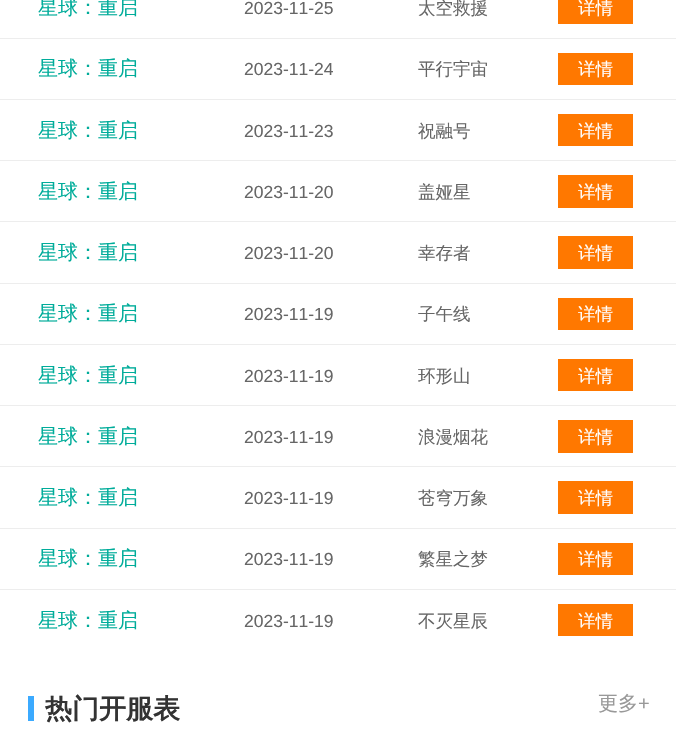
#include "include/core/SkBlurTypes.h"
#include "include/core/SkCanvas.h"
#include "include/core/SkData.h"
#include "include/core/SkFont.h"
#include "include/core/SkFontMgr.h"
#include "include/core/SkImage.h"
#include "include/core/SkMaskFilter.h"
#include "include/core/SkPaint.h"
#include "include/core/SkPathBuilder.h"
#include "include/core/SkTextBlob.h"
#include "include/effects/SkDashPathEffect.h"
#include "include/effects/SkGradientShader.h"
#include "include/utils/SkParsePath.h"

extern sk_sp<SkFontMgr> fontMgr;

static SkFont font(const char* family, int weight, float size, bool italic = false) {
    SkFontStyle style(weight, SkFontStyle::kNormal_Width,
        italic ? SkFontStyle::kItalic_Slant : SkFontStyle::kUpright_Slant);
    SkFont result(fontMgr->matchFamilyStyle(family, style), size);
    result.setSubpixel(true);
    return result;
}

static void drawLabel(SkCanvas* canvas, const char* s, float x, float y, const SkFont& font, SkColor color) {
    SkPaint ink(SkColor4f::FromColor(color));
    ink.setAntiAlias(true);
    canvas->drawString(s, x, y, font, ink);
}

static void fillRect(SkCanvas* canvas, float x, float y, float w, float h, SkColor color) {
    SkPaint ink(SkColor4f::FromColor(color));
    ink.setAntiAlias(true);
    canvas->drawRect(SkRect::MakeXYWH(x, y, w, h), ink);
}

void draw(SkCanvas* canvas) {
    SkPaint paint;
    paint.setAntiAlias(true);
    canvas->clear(0xFFFFFFFF);
    SkFont font1 = font("WenQuanYi Zen Hei", 500, 20);
    drawLabel(canvas, "星球：重启", 38, 14, font1, 0xFF00AC9A);
    SkFont font2 = font("Liberation Sans", 400, 17.5f);
    drawLabel(canvas, "2023-11-25", 244, 14, font2, 0xFF666666);
    SkFont font3 = font("WenQuanYi Zen Hei", 500, 17.5f);
    drawLabel(canvas, "太空救援", 418, 14, font3, 0xFF666666);
    fillRect(canvas, 558, 0, 75, 24, 0xFFFF7800);
    drawLabel(canvas, "详情", 578, 14, font3, 0xFFFFFFFF);
    fillRect(canvas, 0, 38, 676, 1, 0xFFEDEDED);
    drawLabel(canvas, "星球：重启", 38, 75, font1, 0xFF00AC9A);
    drawLabel(canvas, "2023-11-24", 244, 75, font2, 0xFF666666);
    drawLabel(canvas, "平行宇宙", 418, 75, font3, 0xFF666666);
    fillRect(canvas, 558, 53, 75, 32, 0xFFFF7800);
    drawLabel(canvas, "详情", 578, 75, font3, 0xFFFFFFFF);
    fillRect(canvas, 0, 99, 676, 1, 0xFFEDEDED);
    drawLabel(canvas, "星球：重启", 38, 137, font1, 0xFF00AC9A);
    drawLabel(canvas, "2023-11-23", 244, 137, font2, 0xFF666666);
    drawLabel(canvas, "祝融号", 418, 137, font3, 0xFF666666);
    fillRect(canvas, 558, 114, 75, 32, 0xFFFF7800);
    drawLabel(canvas, "详情", 578, 137, font3, 0xFFFFFFFF);
    fillRect(canvas, 0, 160, 676, 1, 0xFFEDEDED);
    drawLabel(canvas, "星球：重启", 38, 198, font1, 0xFF00AC9A);
    drawLabel(canvas, "2023-11-20", 244, 198, font2, 0xFF666666);
    drawLabel(canvas, "盖娅星", 418, 198, font3, 0xFF666666);
    fillRect(canvas, 558, 175, 75, 33, 0xFFFF7800);
    drawLabel(canvas, "详情", 578, 198, font3, 0xFFFFFFFF);
    fillRect(canvas, 0, 221, 676, 1, 0xFFEDEDED);
    drawLabel(canvas, "星球：重启", 38, 259, font1, 0xFF00AC9A);
    drawLabel(canvas, "2023-11-20", 244, 259, font2, 0xFF666666);
    drawLabel(canvas, "幸存者", 418, 259, font3, 0xFF666666);
    fillRect(canvas, 558, 236, 75, 33, 0xFFFF7800);
    drawLabel(canvas, "详情", 578, 259, font3, 0xFFFFFFFF);
    fillRect(canvas, 0, 283, 676, 1, 0xFFEDEDED);
    drawLabel(canvas, "星球：重启", 38, 320, font1, 0xFF00AC9A);
    drawLabel(canvas, "2023-11-19", 244, 320, font2, 0xFF666666);
    drawLabel(canvas, "子午线", 418, 320, font3, 0xFF666666);
    fillRect(canvas, 558, 298, 75, 32, 0xFFFF7800);
    drawLabel(canvas, "详情", 578, 320, font3, 0xFFFFFFFF);
    fillRect(canvas, 0, 344, 676, 1, 0xFFEDEDED);
    drawLabel(canvas, "星球：重启", 38, 382, font1, 0xFF00AC9A);
    drawLabel(canvas, "2023-11-19", 244, 382, font2, 0xFF666666);
    drawLabel(canvas, "环形山", 418, 382, font3, 0xFF666666);
    fillRect(canvas, 558, 359, 75, 32, 0xFFFF7800);
    drawLabel(canvas, "详情", 578, 382, font3, 0xFFFFFFFF);
    fillRect(canvas, 0, 405, 676, 1, 0xFFEDEDED);
    drawLabel(canvas, "星球：重启", 38, 443, font1, 0xFF00AC9A);
    drawLabel(canvas, "2023-11-19", 244, 443, font2, 0xFF666666);
    drawLabel(canvas, "浪漫烟花", 418, 443, font3, 0xFF666666);
    fillRect(canvas, 558, 420, 75, 33, 0xFFFF7800);
    drawLabel(canvas, "详情", 578, 443, font3, 0xFFFFFFFF);
    fillRect(canvas, 0, 466, 676, 1, 0xFFEDEDED);
    drawLabel(canvas, "星球：重启", 38, 504, font1, 0xFF00AC9A);
    drawLabel(canvas, "2023-11-19", 244, 504, font2, 0xFF666666);
    drawLabel(canvas, "苍穹万象", 418, 504, font3, 0xFF666666);
    fillRect(canvas, 558, 481, 75, 33, 0xFFFF7800);
    drawLabel(canvas, "详情", 578, 504, font3, 0xFFFFFFFF);
    fillRect(canvas, 0, 528, 676, 1, 0xFFEDEDED);
    drawLabel(canvas, "星球：重启", 38, 565, font1, 0xFF00AC9A);
    drawLabel(canvas, "2023-11-19", 244, 565, font2, 0xFF666666);
    drawLabel(canvas, "繁星之梦", 418, 565, font3, 0xFF666666);
    fillRect(canvas, 558, 543, 75, 32, 0xFFFF7800);
    drawLabel(canvas, "详情", 578, 565, font3, 0xFFFFFFFF);
    fillRect(canvas, 0, 589, 676, 1, 0xFFEDEDED);
    drawLabel(canvas, "星球：重启", 38, 627, font1, 0xFF00AC9A);
    drawLabel(canvas, "2023-11-19", 244, 627, font2, 0xFF666666);
    drawLabel(canvas, "不灭星辰", 418, 627, font3, 0xFF666666);
    fillRect(canvas, 558, 604, 75, 32, 0xFFFF7800);
    drawLabel(canvas, "详情", 578, 627, font3, 0xFFFFFFFF);
    fillRect(canvas, 28, 696, 6, 25, 0xFF3BAAFF);
    SkFont font4 = font("WenQuanYi Zen Hei", 700, 27);
    drawLabel(canvas, "热门开服表", 45, 718, font4, 0xFF333333);
    drawLabel(canvas, "更多", 598, 710, font1, 0xFF999999);
    SkFont font5 = font("Liberation Sans", 400, 20);
    drawLabel(canvas, "+", 638, 710, font5, 0xFF999999);
}
